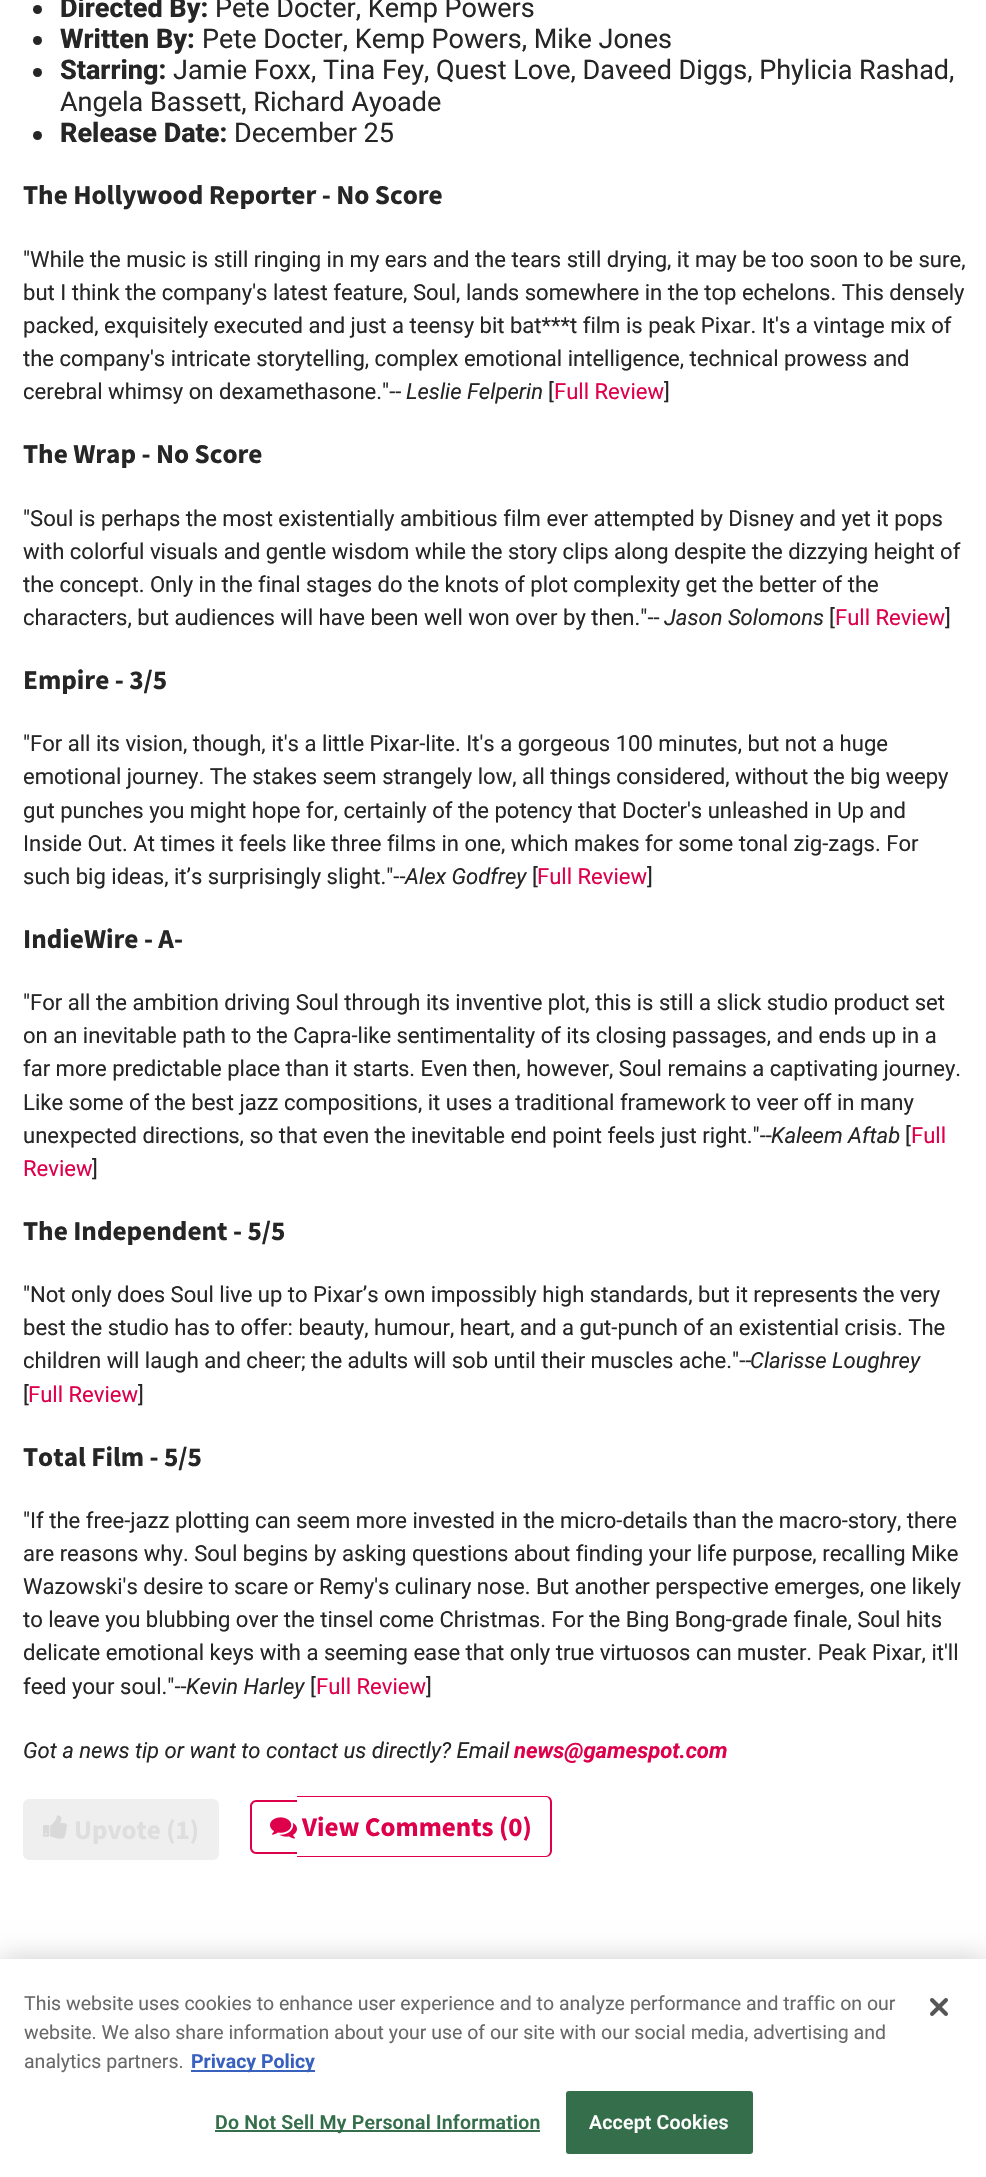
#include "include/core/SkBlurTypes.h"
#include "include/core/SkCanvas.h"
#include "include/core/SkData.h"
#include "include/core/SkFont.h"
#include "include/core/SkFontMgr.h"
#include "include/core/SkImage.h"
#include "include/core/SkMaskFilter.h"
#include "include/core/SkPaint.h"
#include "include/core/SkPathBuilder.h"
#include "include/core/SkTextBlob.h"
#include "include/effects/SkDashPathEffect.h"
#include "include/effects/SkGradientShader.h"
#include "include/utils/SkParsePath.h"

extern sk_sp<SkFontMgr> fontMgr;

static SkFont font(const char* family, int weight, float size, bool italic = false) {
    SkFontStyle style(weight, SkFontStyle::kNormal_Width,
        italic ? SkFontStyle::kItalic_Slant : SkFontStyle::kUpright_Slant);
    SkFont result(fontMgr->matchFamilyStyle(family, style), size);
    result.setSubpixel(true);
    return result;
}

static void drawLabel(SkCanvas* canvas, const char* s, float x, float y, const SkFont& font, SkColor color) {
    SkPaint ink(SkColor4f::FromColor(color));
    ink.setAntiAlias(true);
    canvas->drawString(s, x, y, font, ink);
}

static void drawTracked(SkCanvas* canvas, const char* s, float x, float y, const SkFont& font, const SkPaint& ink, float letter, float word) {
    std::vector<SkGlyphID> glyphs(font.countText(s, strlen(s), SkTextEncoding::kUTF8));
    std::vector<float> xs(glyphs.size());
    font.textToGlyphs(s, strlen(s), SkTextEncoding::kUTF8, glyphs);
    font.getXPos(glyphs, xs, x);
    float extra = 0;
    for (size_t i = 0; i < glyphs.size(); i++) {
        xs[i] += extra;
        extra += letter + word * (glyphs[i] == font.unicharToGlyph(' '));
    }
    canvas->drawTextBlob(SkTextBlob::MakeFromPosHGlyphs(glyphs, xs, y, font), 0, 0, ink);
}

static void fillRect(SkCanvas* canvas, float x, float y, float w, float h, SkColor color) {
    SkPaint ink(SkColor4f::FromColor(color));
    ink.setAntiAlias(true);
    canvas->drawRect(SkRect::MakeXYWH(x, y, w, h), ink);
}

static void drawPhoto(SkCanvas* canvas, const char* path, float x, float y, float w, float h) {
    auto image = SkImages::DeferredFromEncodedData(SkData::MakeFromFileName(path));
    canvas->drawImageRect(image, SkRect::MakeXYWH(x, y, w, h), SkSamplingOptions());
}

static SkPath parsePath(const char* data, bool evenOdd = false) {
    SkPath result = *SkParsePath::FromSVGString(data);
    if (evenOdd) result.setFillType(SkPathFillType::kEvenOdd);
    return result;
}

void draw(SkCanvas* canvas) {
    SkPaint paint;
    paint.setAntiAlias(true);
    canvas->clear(0xFFFFFFFF);
    paint.setColor(0xFF262626);
    canvas->drawCircle(37.5f, 9.5f, 4.5f, paint);
    SkFont font1 = font("Roboto", 800, 27);
    drawLabel(canvas, "Directed By:", 60, 17, font1, 0xFF262626);
    SkFont font2 = font("Roboto", 400, 27);
    drawLabel(canvas, "Pete Docter, Kemp Powers", 215, 17, font2, 0xFF262626);
    canvas->drawCircle(37.5f, 40.5f, 4.5f, paint);
    drawLabel(canvas, "Written By:", 60, 48, font1, 0xFF262626);
    drawLabel(canvas, "Pete Docter, Kemp Powers, Mike Jones", 202, 48, font2, 0xFF262626);
    canvas->drawCircle(37.5f, 72.5f, 4.5f, paint);
    drawLabel(canvas, "Starring:", 60, 79, font1, 0xFF262626);
    drawLabel(canvas, "Jamie Foxx, Tina Fey, Quest Love, Daveed Diggs, Phylicia Rashad,", 173, 79, font2, 0xFF262626);
    drawLabel(canvas, "Angela Bassett, Richard Ayoade", 60, 111, font2, 0xFF262626);
    canvas->drawCircle(37.5f, 135.5f, 4.5f, paint);
    drawLabel(canvas, "Release Date:", 60, 142, font1, 0xFF262626);
    drawLabel(canvas, "December 25", 234, 142, font2, 0xFF262626);
    SkFont font3 = font("Source Sans Pro", 700, 27.2f);
    drawLabel(canvas, "The Hollywood Reporter - No Score", 23, 204, font3, 0xFF262626);
    SkFont font4 = font("Roboto", 400, 22.05f);
    drawLabel(canvas, "\"While the music is still ringing in my ears and the tears still drying, it may be too soon to be sure,", 23, 267, font4, 0xFF262626);
    drawLabel(canvas, "but I think the company's latest feature, Soul, lands somewhere in the top echelons. This densely", 23, 300, font4, 0xFF262626);
    drawLabel(canvas, "packed, exquisitely executed and just a teensy bit bat***t film is peak Pixar. It's a vintage mix of", 23, 333, font4, 0xFF262626);
    drawLabel(canvas, "the company's intricate storytelling, complex emotional intelligence, technical prowess and", 23, 366, font4, 0xFF262626);
    drawLabel(canvas, "cerebral whimsy on dexamethasone.\"--", 23, 399, font4, 0xFF262626);
    SkFont font5 = font("Roboto", 400, 22.05f, true);
    drawLabel(canvas, "Leslie Felperin", 406, 399, font5, 0xFF262626);
    drawLabel(canvas, "[", 548, 399, font4, 0xFF262626);
    drawLabel(canvas, "Full Review", 554, 399, font4, 0xFFDE004A);
    drawLabel(canvas, "]", 664, 399, font4, 0xFF262626);
    drawLabel(canvas, "The Wrap - No Score", 23, 463, font3, 0xFF262626);
    drawLabel(canvas, "\"Soul is perhaps the most existentially ambitious film ever attempted by Disney and yet it pops", 23, 526, font4, 0xFF262626);
    drawLabel(canvas, "with colorful visuals and gentle wisdom while the story clips along despite the dizzying height of", 23, 559, font4, 0xFF262626);
    drawLabel(canvas, "the concept. Only in the final stages do the knots of plot complexity get the better of the", 23, 592, font4, 0xFF262626);
    drawLabel(canvas, "characters, but audiences will have been well won over by then.\"--", 23, 625, font4, 0xFF262626);
    drawLabel(canvas, "Jason Solomons", 664, 625, font5, 0xFF262626);
    drawLabel(canvas, "[", 829, 625, font4, 0xFF262626);
    drawLabel(canvas, "Full Review", 835, 625, font4, 0xFFDE004A);
    drawLabel(canvas, "]", 945, 625, font4, 0xFF262626);
    drawLabel(canvas, "Empire - 3/5", 23, 689, font3, 0xFF262626);
    drawLabel(canvas, "\"For all its vision, though, it's a little Pixar-lite. It's a gorgeous 100 minutes, but not a huge", 23, 751, font4, 0xFF262626);
    drawLabel(canvas, "emotional journey. The stakes seem strangely low, all things considered, without the big weepy", 23, 784, font4, 0xFF262626);
    drawLabel(canvas, "gut punches you might hope for, certainly of the potency that Docter's unleashed in Up and", 23, 818, font4, 0xFF262626);
    drawLabel(canvas, "Inside Out. At times it feels like three films in one, which makes for some tonal zig-zags. For", 23, 851, font4, 0xFF262626);
    drawLabel(canvas, "such big ideas, it’s surprisingly slight.\"--", 23, 884, font4, 0xFF262626);
    drawLabel(canvas, "Alex Godfrey", 405, 884, font5, 0xFF262626);
    drawLabel(canvas, "[", 532, 884, font4, 0xFF262626);
    drawLabel(canvas, "Full Review", 537, 884, font4, 0xFFDE004A);
    drawLabel(canvas, "]", 647, 884, font4, 0xFF262626);
    drawLabel(canvas, "IndieWire - A-", 23, 948, font3, 0xFF262626);
    drawLabel(canvas, "\"For all the ambition driving Soul through its inventive plot, this is still a slick studio product set", 23, 1010, font4, 0xFF262626);
    drawLabel(canvas, "on an inevitable path to the Capra-like sentimentality of its closing passages, and ends up in a", 23, 1043, font4, 0xFF262626);
    drawLabel(canvas, "far more predictable place than it starts. Even then, however, Soul remains a captivating journey.", 23, 1076, font4, 0xFF262626);
    drawLabel(canvas, "Like some of the best jazz compositions, it uses a traditional framework to veer off in many", 23, 1110, font4, 0xFF262626);
    drawLabel(canvas, "unexpected directions, so that even the inevitable end point feels just right.\"--", 23, 1143, font4, 0xFF262626);
    drawLabel(canvas, "Kaleem Aftab", 771, 1143, font5, 0xFF262626);
    drawLabel(canvas, "[", 905, 1143, font4, 0xFF262626);
    drawLabel(canvas, "Full", 911, 1143, font4, 0xFFDE004A);
    drawLabel(canvas, "Review", 23, 1176, font4, 0xFFDE004A);
    drawLabel(canvas, "]", 92, 1176, font4, 0xFF262626);
    drawLabel(canvas, "The Independent - 5/5", 23, 1240, font3, 0xFF262626);
    drawLabel(canvas, "\"Not only does Soul live up to Pixar’s own impossibly high standards, but it represents the very", 23, 1302, font4, 0xFF262626);
    drawLabel(canvas, "best the studio has to offer: beauty, humour, heart, and a gut-punch of an existential crisis. The", 23, 1335, font4, 0xFF262626);
    drawLabel(canvas, "children will laugh and cheer; the adults will sob until their muscles ache.\"--", 23, 1368, font4, 0xFF262626);
    drawLabel(canvas, "Clarisse Loughrey", 750, 1368, font5, 0xFF262626);
    drawLabel(canvas, "[", 23, 1402, font4, 0xFF262626);
    drawLabel(canvas, "Full Review", 28, 1402, font4, 0xFFDE004A);
    drawLabel(canvas, "]", 138, 1402, font4, 0xFF262626);
    drawLabel(canvas, "Total Film - 5/5", 23, 1466, font3, 0xFF262626);
    drawLabel(canvas, "\"If the free-jazz plotting can seem more invested in the micro-details than the macro-story, there", 23, 1528, font4, 0xFF262626);
    drawLabel(canvas, "are reasons why. Soul begins by asking questions about finding your life purpose, recalling Mike", 23, 1561, font4, 0xFF262626);
    drawLabel(canvas, "Wazowski's desire to scare or Remy's culinary nose. But another perspective emerges, one likely", 23, 1594, font4, 0xFF262626);
    drawLabel(canvas, "to leave you blubbing over the tinsel come Christmas. For the Bing Bong-grade finale, Soul hits", 23, 1627, font4, 0xFF262626);
    drawLabel(canvas, "delicate emotional keys with a seeming ease that only true virtuosos can muster. Peak Pixar, it'll", 23, 1660, font4, 0xFF262626);
    drawLabel(canvas, "feed your soul.\"--", 23, 1694, font4, 0xFF262626);
    drawLabel(canvas, "Kevin Harley", 186, 1694, font5, 0xFF262626);
    drawLabel(canvas, "[", 310, 1694, font4, 0xFF262626);
    drawLabel(canvas, "Full Review", 316, 1694, font4, 0xFFDE004A);
    drawLabel(canvas, "]", 426, 1694, font4, 0xFF262626);
    drawLabel(canvas, "Got a news tip or want to contact us directly? Email", 23, 1758, font5, 0xFF262626);
    SkFont font6 = font("Roboto", 700, 22.05f, true);
    drawLabel(canvas, "news@gamespot.com", 514, 1758, font6, 0xFFDE004A);
    paint.setColor(0xFFEFEFEF);
    canvas->drawRoundRect(SkRect::MakeXYWH(24, 1800, 194, 59), 5, 5, paint);
    paint.setStroke(true);
    paint.setStrokeWidth(2);
    canvas->drawRoundRect(SkRect::MakeXYWH(24, 1800, 194, 59), 5, 5, paint);
    drawPhoto(canvas, "assets/img1.png", 43, 1815, 24, 24);
    SkFont font7 = font("Source Sans Pro", 700, 27);
    drawLabel(canvas, "Upvote (1)", 74, 1839, font7, 0xFFDEDEDE);
    paint.setStroke(false);
    paint.setColor(0xFFDE004A);
    canvas->drawPath(parsePath("M256 1800H297V1854H256C253 1854 250 1851 250 1848V1806C250 1803 253 1800 256 1800ZM256 1802H297V1852H256C254 1852 252 1850 252 1848V1806C252 1804 254 1802 256 1802Z", true), paint);
    drawPhoto(canvas, "assets/img2.png", 270, 1817, 27, 22);
    canvas->drawPath(parsePath("M297 1796H546C549 1796 552 1798 552 1802V1851C552 1854 549 1857 546 1857H297ZM297 1797H546C548 1797 550 1799 550 1802V1851C550 1853 548 1856 546 1856H297Z", true), paint);
    drawLabel(canvas, "View Comments (0)", 302, 1836, font7, 0xFFDE004A);
    paint.setColor(0x33000000);
    paint.setMaskFilter(SkMaskFilter::MakeBlur(kNormal_SkBlurStyle, 13.5f));
    canvas->drawRect(SkRect::MakeXYWH(0, 1959, 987, 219), paint);
    paint.setMaskFilter(nullptr);
    fillRect(canvas, 0, 1959, 986, 218, 0xFFFFFFFF);
    SkFont font8 = font("Roboto", 400, 19.5f);
    drawLabel(canvas, "This website uses cookies to enhance user experience and to analyze performance and traffic on our", 24, 2010, font8, 0xFF696969);
    drawLabel(canvas, "website. We also share information about your use of our site with our social media, advertising and", 24, 2039, font8, 0xFF696969);
    drawLabel(canvas, "analytics partners.", 24, 2068, font8, 0xFF696969);
    fillRect(canvas, 191, 2070, 124, 2, 0xFF3860BE);
    SkFont font9 = font("Roboto", 700, 19.5f);
    drawLabel(canvas, "Privacy Policy", 191, 2068, font9, 0xFF3860BE);
    fillRect(canvas, 215, 2130, 325, 2, 0xFF346E4A);
    SkFont font10 = font("Roboto", 600, 19.5f);
    paint.setColor(0xFF346E4A);
    drawTracked(canvas, "Do Not Sell My Personal Information", 215, 2129, font10, paint, 0.2f, 0);
    canvas->drawRoundRect(SkRect::MakeXYWH(567, 2092, 185, 61), 2, 2, paint);
    paint.setStroke(true);
    canvas->drawRoundRect(SkRect::MakeXYWH(567, 2092, 185, 61), 2, 2, paint);
    paint.setStroke(false);
    paint.setColor(0xFFFFFFFF);
    drawTracked(canvas, "Accept Cookies", 589, 2129, font10, paint, 0.2f, 0);
    drawPhoto(canvas, "assets/img3.png", 930, 1998, 18, 18);
}
